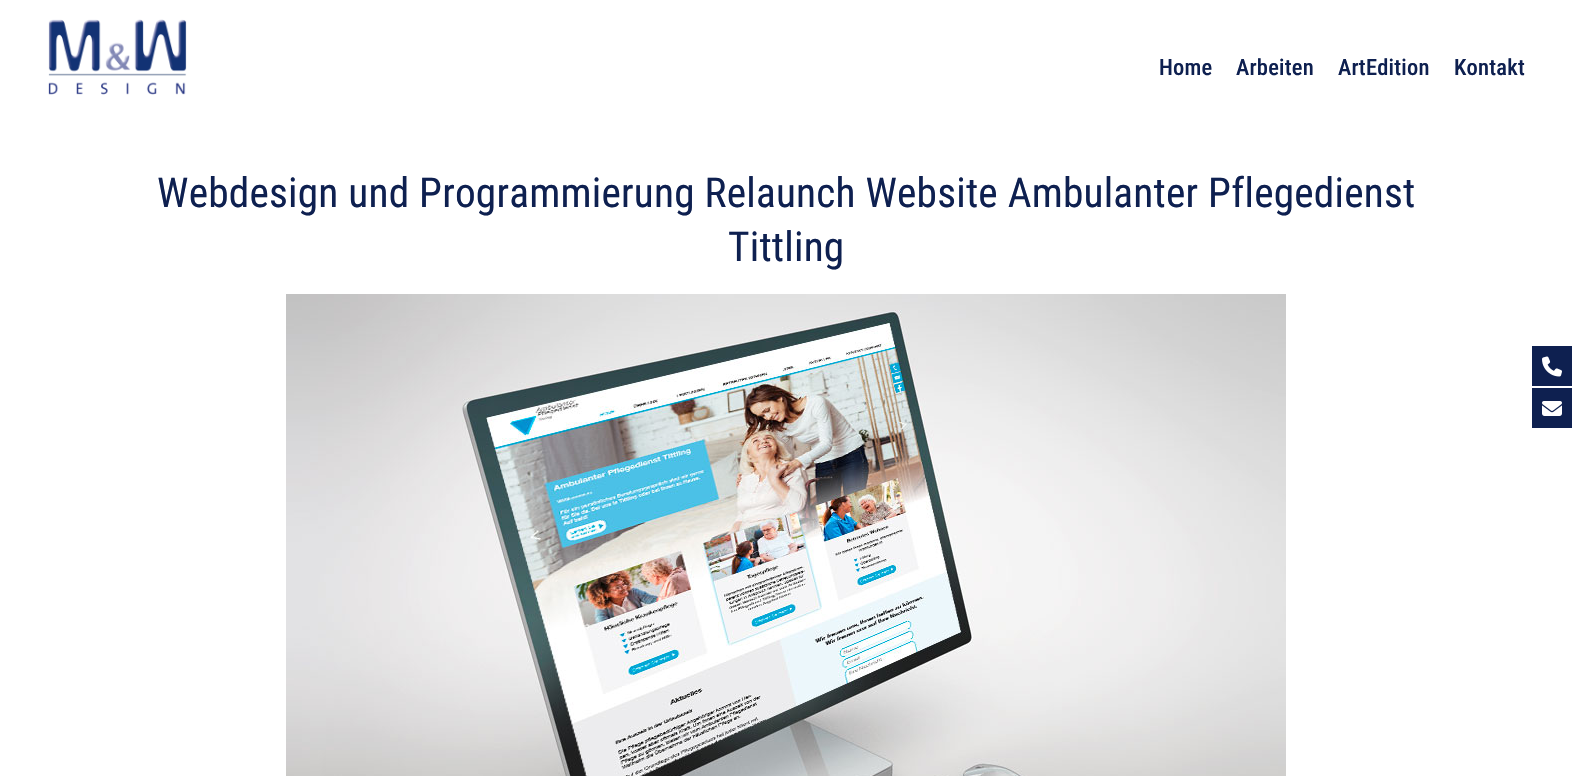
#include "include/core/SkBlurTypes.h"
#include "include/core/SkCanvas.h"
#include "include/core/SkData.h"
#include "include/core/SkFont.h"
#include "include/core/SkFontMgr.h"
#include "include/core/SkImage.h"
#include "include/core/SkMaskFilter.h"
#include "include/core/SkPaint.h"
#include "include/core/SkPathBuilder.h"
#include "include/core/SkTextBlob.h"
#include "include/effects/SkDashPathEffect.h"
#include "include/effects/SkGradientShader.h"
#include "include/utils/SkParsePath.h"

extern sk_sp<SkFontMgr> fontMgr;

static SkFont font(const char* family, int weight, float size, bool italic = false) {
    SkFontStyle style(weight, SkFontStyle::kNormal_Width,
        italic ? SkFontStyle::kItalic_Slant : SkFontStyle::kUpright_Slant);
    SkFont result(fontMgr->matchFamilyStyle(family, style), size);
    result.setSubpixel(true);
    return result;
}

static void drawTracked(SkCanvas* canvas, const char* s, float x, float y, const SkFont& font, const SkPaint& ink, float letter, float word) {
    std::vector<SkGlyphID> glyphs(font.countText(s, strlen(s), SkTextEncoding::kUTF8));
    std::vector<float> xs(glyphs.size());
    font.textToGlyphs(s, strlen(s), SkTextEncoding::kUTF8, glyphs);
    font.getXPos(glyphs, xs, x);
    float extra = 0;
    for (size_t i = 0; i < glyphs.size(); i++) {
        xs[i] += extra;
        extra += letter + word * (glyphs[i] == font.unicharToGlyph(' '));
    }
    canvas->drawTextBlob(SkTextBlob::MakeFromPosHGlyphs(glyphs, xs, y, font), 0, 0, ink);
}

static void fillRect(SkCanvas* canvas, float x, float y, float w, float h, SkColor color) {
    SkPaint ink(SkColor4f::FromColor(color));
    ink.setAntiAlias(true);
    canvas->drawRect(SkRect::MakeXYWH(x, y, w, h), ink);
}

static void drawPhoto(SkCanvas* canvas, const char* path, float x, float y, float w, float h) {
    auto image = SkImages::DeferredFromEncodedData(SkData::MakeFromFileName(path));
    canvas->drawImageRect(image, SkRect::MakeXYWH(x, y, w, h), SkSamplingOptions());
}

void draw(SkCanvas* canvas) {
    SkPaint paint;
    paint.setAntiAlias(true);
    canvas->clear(0xFFFFFFFF);
    drawPhoto(canvas, "assets/img1.png", 48, 19, 139, 76);
    SkFont font1 = font("Roboto Condensed", 500, 22.5f);
    paint.setColor(0xFF0E2050);
    drawTracked(canvas, "Home", 1159, 75, font1, paint, 0.23f, 0);
    drawTracked(canvas, "Arbeiten", 1236, 75, font1, paint, 0.23f, 0);
    drawTracked(canvas, "ArtEdition", 1338, 75, font1, paint, 0.23f, 0);
    drawTracked(canvas, "Kontakt", 1454, 75, font1, paint, 0.23f, 0);
    SkFont font2 = font("Roboto Condensed", 400, 41.25f);
    drawTracked(canvas, "Webdesign und Programmierung Relaunch Website Ambulanter Pflegedienst", 157, 207, font2, paint, 0.23f, 0);
    drawTracked(canvas, "Tittling", 728, 261, font2, paint, 0.23f, 0);
    drawPhoto(canvas, "assets/img2.png", 286, 294, 1000, 482);
    fillRect(canvas, 1532, 346, 40, 40, 0xFF0E2050);
    drawPhoto(canvas, "assets/img3.png", 1542, 356, 20, 21);
    fillRect(canvas, 1532, 388, 40, 40, 0xFF0E2050);
    drawPhoto(canvas, "assets/img4.png", 1542, 401, 20, 15);
}
